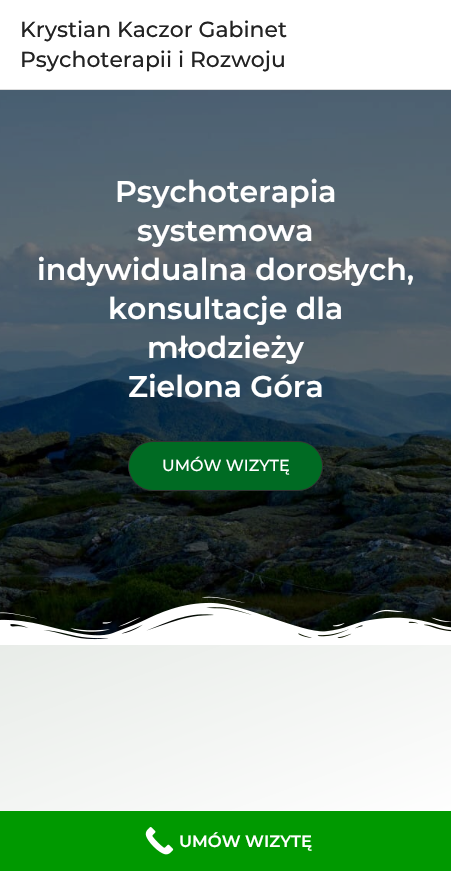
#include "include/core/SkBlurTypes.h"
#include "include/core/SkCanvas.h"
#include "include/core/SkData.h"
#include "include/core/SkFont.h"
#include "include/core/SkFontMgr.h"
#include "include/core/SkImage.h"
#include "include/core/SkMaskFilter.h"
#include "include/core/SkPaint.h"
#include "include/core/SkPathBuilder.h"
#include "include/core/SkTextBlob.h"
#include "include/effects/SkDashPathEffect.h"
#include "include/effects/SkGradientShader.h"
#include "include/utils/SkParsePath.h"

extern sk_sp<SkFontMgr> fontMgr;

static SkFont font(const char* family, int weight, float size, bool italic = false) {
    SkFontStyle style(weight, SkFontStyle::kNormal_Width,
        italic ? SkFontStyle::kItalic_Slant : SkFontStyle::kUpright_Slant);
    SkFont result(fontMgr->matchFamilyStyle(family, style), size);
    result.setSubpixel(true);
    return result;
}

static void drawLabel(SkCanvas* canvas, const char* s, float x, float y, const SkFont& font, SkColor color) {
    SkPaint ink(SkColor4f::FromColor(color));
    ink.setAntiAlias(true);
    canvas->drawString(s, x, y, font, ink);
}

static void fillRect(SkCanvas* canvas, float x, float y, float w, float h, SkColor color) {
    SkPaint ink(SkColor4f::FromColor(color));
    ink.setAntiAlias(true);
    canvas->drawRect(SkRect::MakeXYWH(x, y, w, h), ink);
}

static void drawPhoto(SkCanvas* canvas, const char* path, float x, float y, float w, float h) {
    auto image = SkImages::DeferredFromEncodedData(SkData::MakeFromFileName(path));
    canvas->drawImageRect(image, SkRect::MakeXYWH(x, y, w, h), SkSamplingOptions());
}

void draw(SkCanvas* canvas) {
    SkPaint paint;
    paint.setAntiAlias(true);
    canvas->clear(0xFFFFFFFF);
    fillRect(canvas, 0, 89, 451, 1, 0xFFDDDDDD);
    SkFont font1 = font("Montserrat", 500, 21.9f);
    drawLabel(canvas, "Krystian Kaczor Gabinet", 20, 37, font1, 0xFF222222);
    drawLabel(canvas, "Psychoterapii i Rozwoju", 20, 67, font1, 0xFF222222);
    drawPhoto(canvas, "assets/img1.png", 0, 90, 451, 550);
    SkFont font2 = font("Montserrat", 600, 30);
    drawLabel(canvas, "Psychoterapia", 115, 202, font2, 0xFFFFFFFF);
    drawLabel(canvas, "systemowa", 137, 241, font2, 0xFFFFFFFF);
    drawLabel(canvas, "indywidualna dorosłych,", 37, 280, font2, 0xFFFFFFFF);
    drawLabel(canvas, "konsultacje dla", 108, 319, font2, 0xFFFFFFFF);
    drawLabel(canvas, "młodzieży", 147, 358, font2, 0xFFFFFFFF);
    drawLabel(canvas, "Zielona Góra", 128, 397, font2, 0xFFFFFFFF);
    paint.setColor(0xFF006B23);
    canvas->drawRoundRect(SkRect::MakeXYWH(128.5f, 441.5f, 194, 49), 24.5f, 24.5f, paint);
    paint.setStroke(true);
    paint.setStrokeWidth(1);
    paint.setColor(0xFF333333);
    canvas->drawRoundRect(SkRect::MakeXYWH(128.5f, 441.5f, 194, 49), 24.5f, 24.5f, paint);
    SkFont font3 = font("Montserrat", 500, 16);
    drawLabel(canvas, "UMÓW WIZYTĘ", 162, 471, font3, 0xFFFFFFFF);
    drawPhoto(canvas, "assets/img2.png", 0, 596, 451, 49);
    paint.setStroke(false);
    {
        const SkColor colors[] = {0xFFE8ECE8, 0xFFFEFEFE};
        const float stops[] = {0, 1};
        const SkPoint ends[] = {{171, 580}, {280, 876}};
        paint.setShader(SkGradientShader::MakeLinear(ends, colors, stops, 2, SkTileMode::kClamp));
        paint.setAlpha(255);
    }
    canvas->drawRect(SkRect::MakeXYWH(0, 645, 451, 166), paint);
    fillRect(canvas, 0, 811, 451, 60, 0xFF009900);
    drawPhoto(canvas, "assets/img3.png", 145, 827, 29, 28);
    SkFont font4 = font("Montserrat", 600, 16.5f);
    drawLabel(canvas, "UMÓW WIZYTĘ", 179, 847, font4, 0xFFFFFFFF);
}
